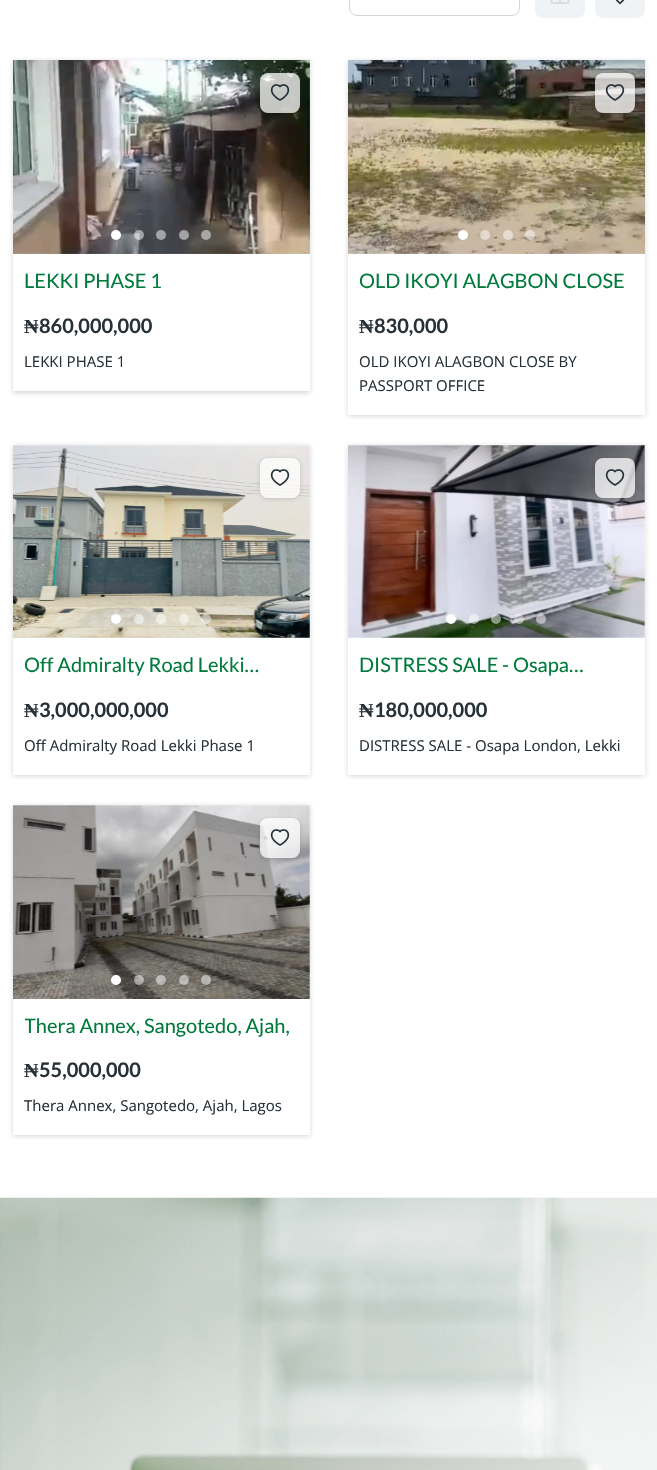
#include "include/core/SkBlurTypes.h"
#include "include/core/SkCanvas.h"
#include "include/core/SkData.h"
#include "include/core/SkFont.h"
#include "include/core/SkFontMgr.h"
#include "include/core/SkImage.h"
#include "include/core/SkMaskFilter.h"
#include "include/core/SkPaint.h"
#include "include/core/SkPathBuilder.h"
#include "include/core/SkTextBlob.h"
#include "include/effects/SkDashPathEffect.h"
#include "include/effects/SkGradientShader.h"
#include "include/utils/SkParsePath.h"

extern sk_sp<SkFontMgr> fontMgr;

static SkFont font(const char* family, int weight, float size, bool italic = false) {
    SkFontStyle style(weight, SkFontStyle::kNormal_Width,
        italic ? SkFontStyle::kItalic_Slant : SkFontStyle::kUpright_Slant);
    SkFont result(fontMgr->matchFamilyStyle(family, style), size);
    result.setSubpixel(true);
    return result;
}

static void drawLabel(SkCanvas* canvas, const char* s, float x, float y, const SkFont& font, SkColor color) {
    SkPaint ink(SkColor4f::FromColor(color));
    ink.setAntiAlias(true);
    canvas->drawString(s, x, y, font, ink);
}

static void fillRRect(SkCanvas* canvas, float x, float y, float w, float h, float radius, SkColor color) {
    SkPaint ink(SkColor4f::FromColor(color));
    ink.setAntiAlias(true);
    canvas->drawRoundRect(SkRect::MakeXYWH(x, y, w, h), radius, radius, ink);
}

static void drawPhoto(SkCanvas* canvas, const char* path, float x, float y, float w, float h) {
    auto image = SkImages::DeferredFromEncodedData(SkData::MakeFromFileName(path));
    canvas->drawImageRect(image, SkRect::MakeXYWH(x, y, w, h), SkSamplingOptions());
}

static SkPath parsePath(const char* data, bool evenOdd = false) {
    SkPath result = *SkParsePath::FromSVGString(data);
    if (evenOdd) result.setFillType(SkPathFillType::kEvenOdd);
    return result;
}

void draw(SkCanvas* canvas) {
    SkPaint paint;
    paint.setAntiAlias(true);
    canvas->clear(0xFFFFFFFF);
    paint.setStroke(true);
    paint.setStrokeWidth(1);
    paint.setColor(0xFFCFD8DC);
    canvas->drawRoundRect(SkRect::MakeXYWH(349.5f, -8.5f, 170, 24), 7.5f, 7.5f, paint);
    paint.setStroke(false);
    paint.setColor(0xFFEFF3F5);
    canvas->drawRoundRect(SkRect::MakeXYWH(536.5f, -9.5f, 47, 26), 6.5f, 6.5f, paint);
    paint.setStroke(true);
    paint.setStrokeWidth(3);
    canvas->drawRoundRect(SkRect::MakeXYWH(536.5f, -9.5f, 47, 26), 6.5f, 6.5f, paint);
    drawPhoto(canvas, "assets/img1.png", 550, 0, 20, 4);
    paint.setStroke(false);
    canvas->drawRoundRect(SkRect::MakeXYWH(596.5f, -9.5f, 47, 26), 6.5f, 6.5f, paint);
    paint.setStroke(true);
    canvas->drawRoundRect(SkRect::MakeXYWH(596.5f, -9.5f, 47, 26), 6.5f, 6.5f, paint);
    drawPhoto(canvas, "assets/img2.png", 615, 0, 10, 5);
    canvas->save();
    canvas->clipPath(parsePath("M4 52H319V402H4ZM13 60H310V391H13Z", true), true);
    paint.setStroke(false);
    paint.setColor(0x33263238);
    paint.setMaskFilter(SkMaskFilter::MakeBlur(kNormal_SkBlurStyle, 2.5f));
    canvas->drawRect(SkRect::MakeXYWH(13, 61, 297, 332), paint);
    paint.setMaskFilter(nullptr);
    canvas->restore();
    drawPhoto(canvas, "assets/img3.png", 13, 60, 297, 194);
    paint.setColor(0xFFFFFFFF);
    canvas->drawCircle(116, 235, 5, paint);
    paint.setColor(0x80FFFFFF);
    canvas->drawCircle(139, 235, 5, paint);
    canvas->drawCircle(161, 235, 5, paint);
    canvas->drawCircle(184, 235, 5, paint);
    canvas->drawCircle(206, 235, 5, paint);
    fillRRect(canvas, 260, 73, 40, 40, 8, 0xBFFFFFFF);
    drawPhoto(canvas, "assets/img4.png", 270, 84, 20, 17);
    SkFont font1 = font("Lato", 400, 20);
    drawLabel(canvas, "LEKKI PHASE 1", 24, 288, font1, 0xFF007B3C);
    SkFont font2 = font("Liberation Serif", 700, 20);
    drawLabel(canvas, "₦", 24, 333, font2, 0xFF263238);
    SkFont font3 = font("Lato", 700, 20);
    drawLabel(canvas, "860,000,000", 39, 333, font3, 0xFF263238);
    SkFont font4 = font("Open Sans", 400, 15);
    drawLabel(canvas, "LEKKI PHASE 1", 24, 367, font4, 0xFF263238);
    canvas->save();
    canvas->clipPath(parsePath("M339 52H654V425H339ZM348 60H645V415H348Z", true), true);
    paint.setColor(0x33263238);
    paint.setMaskFilter(SkMaskFilter::MakeBlur(kNormal_SkBlurStyle, 2.5f));
    canvas->drawRect(SkRect::MakeXYWH(348, 61, 297, 355), paint);
    paint.setMaskFilter(nullptr);
    canvas->restore();
    drawPhoto(canvas, "assets/img5.png", 348, 60, 297, 194);
    paint.setColor(0xFFFFFFFF);
    canvas->drawCircle(463, 235, 5, paint);
    paint.setColor(0x80FFFFFF);
    canvas->drawCircle(485, 235, 5, paint);
    canvas->drawCircle(508, 235, 5, paint);
    canvas->drawCircle(530, 235, 5, paint);
    canvas->save();
    canvas->clipPath(parsePath("M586 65H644V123H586ZM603 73H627C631.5 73 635 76.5 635 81V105C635 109.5 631.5 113 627 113H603C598.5 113 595 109.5 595 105V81C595 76.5 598.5 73 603 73Z", true), true);
    paint.setColor(0x33263238);
    paint.setMaskFilter(SkMaskFilter::MakeBlur(kNormal_SkBlurStyle, 2.5f));
    canvas->drawRoundRect(SkRect::MakeXYWH(595, 74, 40, 40), 8, 8, paint);
    paint.setMaskFilter(nullptr);
    canvas->restore();
    fillRRect(canvas, 595, 73, 40, 40, 8, 0xBFFFFFFF);
    drawPhoto(canvas, "assets/img6.png", 605, 84, 20, 17);
    drawLabel(canvas, "OLD IKOYI ALAGBON CLOSE", 359, 288, font1, 0xFF007B3C);
    drawLabel(canvas, "₦", 359, 333, font2, 0xFF263238);
    drawLabel(canvas, "830,000", 374, 333, font3, 0xFF263238);
    drawLabel(canvas, "OLD IKOYI ALAGBON CLOSE BY", 359, 367, font4, 0xFF263238);
    drawLabel(canvas, "PASSPORT OFFICE", 359, 391, font4, 0xFF263238);
    canvas->save();
    canvas->clipPath(parsePath("M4 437H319V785H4ZM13 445H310V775H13Z", true), true);
    paint.setMaskFilter(SkMaskFilter::MakeBlur(kNormal_SkBlurStyle, 2.5f));
    canvas->drawRect(SkRect::MakeXYWH(13, 446, 297, 330), paint);
    paint.setMaskFilter(nullptr);
    canvas->restore();
    drawPhoto(canvas, "assets/img7.png", 13, 445, 297, 193);
    paint.setColor(0xFFFFFFFF);
    canvas->drawCircle(116, 619, 5, paint);
    paint.setColor(0x80FFFFFF);
    canvas->drawCircle(139, 619, 5, paint);
    canvas->drawCircle(161, 619, 5, paint);
    canvas->drawCircle(184, 619, 5, paint);
    canvas->drawCircle(206, 619, 5, paint);
    canvas->save();
    canvas->clipPath(parsePath("M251 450H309V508H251ZM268 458H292C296.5 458 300 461.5 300 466V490C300 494.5 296.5 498 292 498H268C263.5 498 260 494.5 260 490V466C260 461.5 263.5 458 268 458Z", true), true);
    paint.setColor(0x33263238);
    paint.setMaskFilter(SkMaskFilter::MakeBlur(kNormal_SkBlurStyle, 2.5f));
    canvas->drawRoundRect(SkRect::MakeXYWH(260, 459, 40, 40), 8, 8, paint);
    paint.setMaskFilter(nullptr);
    canvas->restore();
    fillRRect(canvas, 260, 458, 40, 40, 8, 0xBFFFFFFF);
    drawPhoto(canvas, "assets/img8.png", 270, 469, 20, 17);
    drawLabel(canvas, "Off Admiralty Road Lekki…", 24, 672, font1, 0xFF007B3C);
    drawLabel(canvas, "₦", 24, 717, font2, 0xFF263238);
    drawLabel(canvas, "3,000,000,000", 39, 717, font3, 0xFF263238);
    drawLabel(canvas, "Off Admiralty Road Lekki Phase 1", 24, 751, font4, 0xFF263238);
    canvas->save();
    canvas->clipPath(parsePath("M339 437H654V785H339ZM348 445H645V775H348Z", true), true);
    paint.setMaskFilter(SkMaskFilter::MakeBlur(kNormal_SkBlurStyle, 2.5f));
    canvas->drawRect(SkRect::MakeXYWH(348, 446, 297, 330), paint);
    paint.setMaskFilter(nullptr);
    canvas->restore();
    drawPhoto(canvas, "assets/img9.png", 348, 445, 297, 193);
    paint.setColor(0xFFFFFFFF);
    canvas->drawCircle(451, 619, 5, paint);
    paint.setColor(0x80FFFFFF);
    canvas->drawCircle(474, 619, 5, paint);
    canvas->drawCircle(496, 619, 5, paint);
    canvas->drawCircle(519, 619, 5, paint);
    canvas->drawCircle(541, 619, 5, paint);
    canvas->save();
    canvas->clipPath(parsePath("M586 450H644V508H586ZM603 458H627C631.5 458 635 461.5 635 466V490C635 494.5 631.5 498 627 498H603C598.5 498 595 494.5 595 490V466C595 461.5 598.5 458 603 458Z", true), true);
    paint.setColor(0x33263238);
    paint.setMaskFilter(SkMaskFilter::MakeBlur(kNormal_SkBlurStyle, 2.5f));
    canvas->drawRoundRect(SkRect::MakeXYWH(595, 459, 40, 40), 8, 8, paint);
    paint.setMaskFilter(nullptr);
    canvas->restore();
    fillRRect(canvas, 595, 458, 40, 40, 8, 0xBFFFFFFF);
    drawPhoto(canvas, "assets/img10.png", 605, 469, 20, 17);
    drawLabel(canvas, "DISTRESS SALE - Osapa…", 359, 672, font1, 0xFF007B3C);
    drawLabel(canvas, "₦", 359, 717, font2, 0xFF263238);
    drawLabel(canvas, "180,000,000", 374, 717, font3, 0xFF263238);
    drawLabel(canvas, "DISTRESS SALE - Osapa London, Lekki", 359, 751, font4, 0xFF263238);
    canvas->save();
    canvas->clipPath(parsePath("M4 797H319V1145H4ZM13 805H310V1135H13Z", true), true);
    paint.setMaskFilter(SkMaskFilter::MakeBlur(kNormal_SkBlurStyle, 2.5f));
    canvas->drawRect(SkRect::MakeXYWH(13, 806, 297, 330), paint);
    paint.setMaskFilter(nullptr);
    canvas->restore();
    drawPhoto(canvas, "assets/img11.png", 13, 805, 297, 194);
    paint.setColor(0xFFFFFFFF);
    canvas->drawCircle(116, 980, 5, paint);
    paint.setColor(0x80FFFFFF);
    canvas->drawCircle(139, 980, 5, paint);
    canvas->drawCircle(161, 980, 5, paint);
    canvas->drawCircle(184, 980, 5, paint);
    canvas->drawCircle(206, 980, 5, paint);
    canvas->save();
    canvas->clipPath(parsePath("M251 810H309V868H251ZM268 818H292C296.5 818 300 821.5 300 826V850C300 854.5 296.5 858 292 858H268C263.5 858 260 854.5 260 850V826C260 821.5 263.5 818 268 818Z", true), true);
    paint.setColor(0x33263238);
    paint.setMaskFilter(SkMaskFilter::MakeBlur(kNormal_SkBlurStyle, 2.5f));
    canvas->drawRoundRect(SkRect::MakeXYWH(260, 819, 40, 40), 8, 8, paint);
    paint.setMaskFilter(nullptr);
    canvas->restore();
    fillRRect(canvas, 260, 818, 40, 40, 8, 0xBFFFFFFF);
    drawPhoto(canvas, "assets/img12.png", 270, 829, 20, 17);
    canvas->save();
    canvas->clipRect(SkRect::MakeXYWH(25, 1010, 273, 30));
    drawLabel(canvas, "Thera Annex, Sangotedo, Ajah,", 24, 1033, font1, 0xFF007B3C);
    canvas->restore();
    drawLabel(canvas, "₦", 24, 1077, font2, 0xFF263238);
    drawLabel(canvas, "55,000,000", 39, 1077, font3, 0xFF263238);
    drawLabel(canvas, "Thera Annex, Sangotedo, Ajah, Lagos", 24, 1111, font4, 0xFF263238);
    drawPhoto(canvas, "assets/img13.png", 0, 1197, 657, 273);
}
